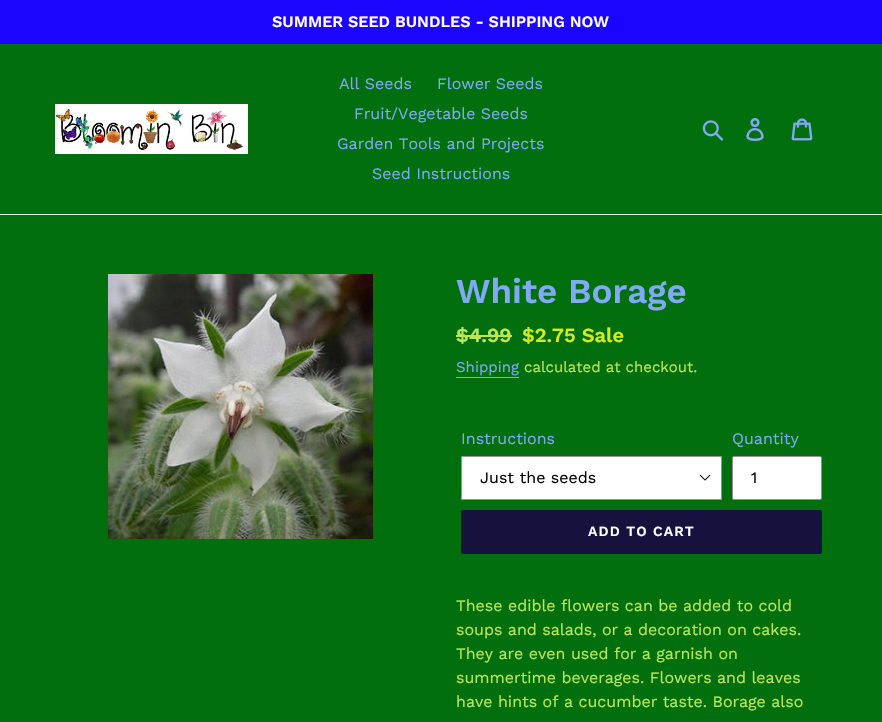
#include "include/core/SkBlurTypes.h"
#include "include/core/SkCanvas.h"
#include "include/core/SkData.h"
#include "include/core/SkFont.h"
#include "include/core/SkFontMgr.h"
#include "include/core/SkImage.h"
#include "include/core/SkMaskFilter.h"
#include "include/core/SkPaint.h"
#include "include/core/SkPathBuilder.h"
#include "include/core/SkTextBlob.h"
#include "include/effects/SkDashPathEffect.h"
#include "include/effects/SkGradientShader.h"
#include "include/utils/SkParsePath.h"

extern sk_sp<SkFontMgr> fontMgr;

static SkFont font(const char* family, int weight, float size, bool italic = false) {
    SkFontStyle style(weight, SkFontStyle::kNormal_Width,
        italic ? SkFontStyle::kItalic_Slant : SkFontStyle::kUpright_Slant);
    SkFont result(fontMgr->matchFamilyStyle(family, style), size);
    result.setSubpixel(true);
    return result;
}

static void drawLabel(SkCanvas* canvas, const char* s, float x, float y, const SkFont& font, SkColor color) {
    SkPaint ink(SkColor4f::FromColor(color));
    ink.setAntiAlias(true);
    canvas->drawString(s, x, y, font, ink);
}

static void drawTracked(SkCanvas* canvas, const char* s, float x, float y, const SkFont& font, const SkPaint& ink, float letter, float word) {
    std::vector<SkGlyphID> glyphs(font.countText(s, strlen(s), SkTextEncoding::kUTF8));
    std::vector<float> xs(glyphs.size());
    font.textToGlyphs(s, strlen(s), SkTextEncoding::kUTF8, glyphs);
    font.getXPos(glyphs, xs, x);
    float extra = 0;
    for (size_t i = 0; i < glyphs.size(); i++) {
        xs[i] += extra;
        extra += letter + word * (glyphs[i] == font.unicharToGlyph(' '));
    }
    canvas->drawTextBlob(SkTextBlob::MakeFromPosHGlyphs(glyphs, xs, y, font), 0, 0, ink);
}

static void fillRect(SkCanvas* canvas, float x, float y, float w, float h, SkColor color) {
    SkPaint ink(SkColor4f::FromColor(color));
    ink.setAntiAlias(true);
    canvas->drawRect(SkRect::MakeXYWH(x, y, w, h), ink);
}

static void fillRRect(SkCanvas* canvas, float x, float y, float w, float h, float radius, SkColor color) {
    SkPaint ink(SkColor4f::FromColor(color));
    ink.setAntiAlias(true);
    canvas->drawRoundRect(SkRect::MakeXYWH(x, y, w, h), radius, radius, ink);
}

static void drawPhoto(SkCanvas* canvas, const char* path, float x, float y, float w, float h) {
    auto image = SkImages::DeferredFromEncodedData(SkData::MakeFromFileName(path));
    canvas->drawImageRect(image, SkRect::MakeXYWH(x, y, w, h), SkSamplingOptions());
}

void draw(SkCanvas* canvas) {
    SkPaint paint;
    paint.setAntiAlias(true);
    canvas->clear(0xFF016F0D);
    fillRect(canvas, 0, 0, 882, 44, 0xFF1C05FC);
    SkFont font1 = font("Work Sans", 600, 16);
    drawLabel(canvas, "SUMMER SEED BUNDLES - SHIPPING NOW", 272, 27, font1, 0xFFFFFFFF);
    fillRect(canvas, 0, 214, 882, 1, 0xFFE8E9EB);
    drawPhoto(canvas, "assets/img1.png", 55, 104, 193, 50);
    SkFont font2 = font("Work Sans", 400, 16);
    drawLabel(canvas, "All Seeds", 339, 89, font2, 0xFF81A9F8);
    drawLabel(canvas, "Flower Seeds", 437, 89, font2, 0xFF81A9F8);
    drawLabel(canvas, "Fruit/Vegetable Seeds", 354, 119, font2, 0xFF81A9F8);
    drawLabel(canvas, "Garden Tools and Projects", 337, 149, font2, 0xFF81A9F8);
    drawLabel(canvas, "Seed Instructions", 372, 179, font2, 0xFF81A9F8);
    drawPhoto(canvas, "assets/img2.png", 702, 120, 22, 21);
    drawPhoto(canvas, "assets/img3.png", 746, 118, 18, 23);
    drawPhoto(canvas, "assets/img4.png", 791, 118, 22, 23);
    drawPhoto(canvas, "assets/img5.png", 108, 274, 265, 265);
    SkFont font3 = font("Work Sans", 600, 35);
    drawLabel(canvas, "White Borage", 456, 303, font3, 0xFF81A9F8);
    SkFont font4 = font("Work Sans", 600, 20);
    drawLabel(canvas, "$4.99", 456, 342, font4, 0xFFBCE65A);
    fillRect(canvas, 456, 335, 56, 2, 0xFFBCE65A);
    drawLabel(canvas, "$2.75 Sale", 522, 342, font4, 0xFFD1EB25);
    SkFont font5 = font("Work Sans", 400, 15);
    drawLabel(canvas, "Shipping", 456, 372, font5, 0xFF81A9F8);
    fillRect(canvas, 456, 377, 63, 1, 0xFF81A9F8);
    drawLabel(canvas, "calculated at checkout.", 524, 372, font5, 0xFFBCE65A);
    drawLabel(canvas, "Instructions", 461, 444, font2, 0xFF81A9F8);
    fillRRect(canvas, 461, 456, 261, 44, 2, 0xFFFFFFFF);
    drawPhoto(canvas, "assets/img6.png", 699, 474, 12, 7);
    paint.setStroke(true);
    paint.setStrokeWidth(1);
    paint.setColor(0xFF949494);
    canvas->drawRoundRect(SkRect::MakeXYWH(461.5f, 456.5f, 260, 43), 1.5f, 1.5f, paint);
    drawLabel(canvas, "Just the seeds", 480, 483, font2, 0xFF000000);
    drawLabel(canvas, "Quantity", 732, 444, font2, 0xFF81A9F8);
    paint.setStroke(false);
    paint.setColor(0xFFFFFFFF);
    canvas->drawRoundRect(SkRect::MakeXYWH(732.5f, 456.5f, 89, 43), 1.5f, 1.5f, paint);
    paint.setStroke(true);
    paint.setColor(0xFF949494);
    canvas->drawRoundRect(SkRect::MakeXYWH(732.5f, 456.5f, 89, 43), 1.5f, 1.5f, paint);
    drawLabel(canvas, "1", 751, 483, font2, 0xFF000000);
    fillRRect(canvas, 461, 510, 361, 44, 2, 0xFF16123D);
    SkFont font6 = font("Work Sans", 600, 14);
    paint.setStroke(false);
    paint.setColor(0xFFFFFFFF);
    drawTracked(canvas, "ADD TO CART", 588, 536, font6, paint, 1.1f, 0);
    drawLabel(canvas, "These edible flowers can be added to cold", 456, 611, font2, 0xFFBCE65A);
    drawLabel(canvas, "soups and salads, or a decoration on cakes.", 456, 635, font2, 0xFFBCE65A);
    drawLabel(canvas, "They are even used for a garnish on", 456, 659, font2, 0xFFBCE65A);
    drawLabel(canvas, "summertime beverages. Flowers and leaves", 456, 683, font2, 0xFFBCE65A);
    drawLabel(canvas, "have hints of a cucumber taste. Borage also", 456, 707, font2, 0xFFBCE65A);
}
